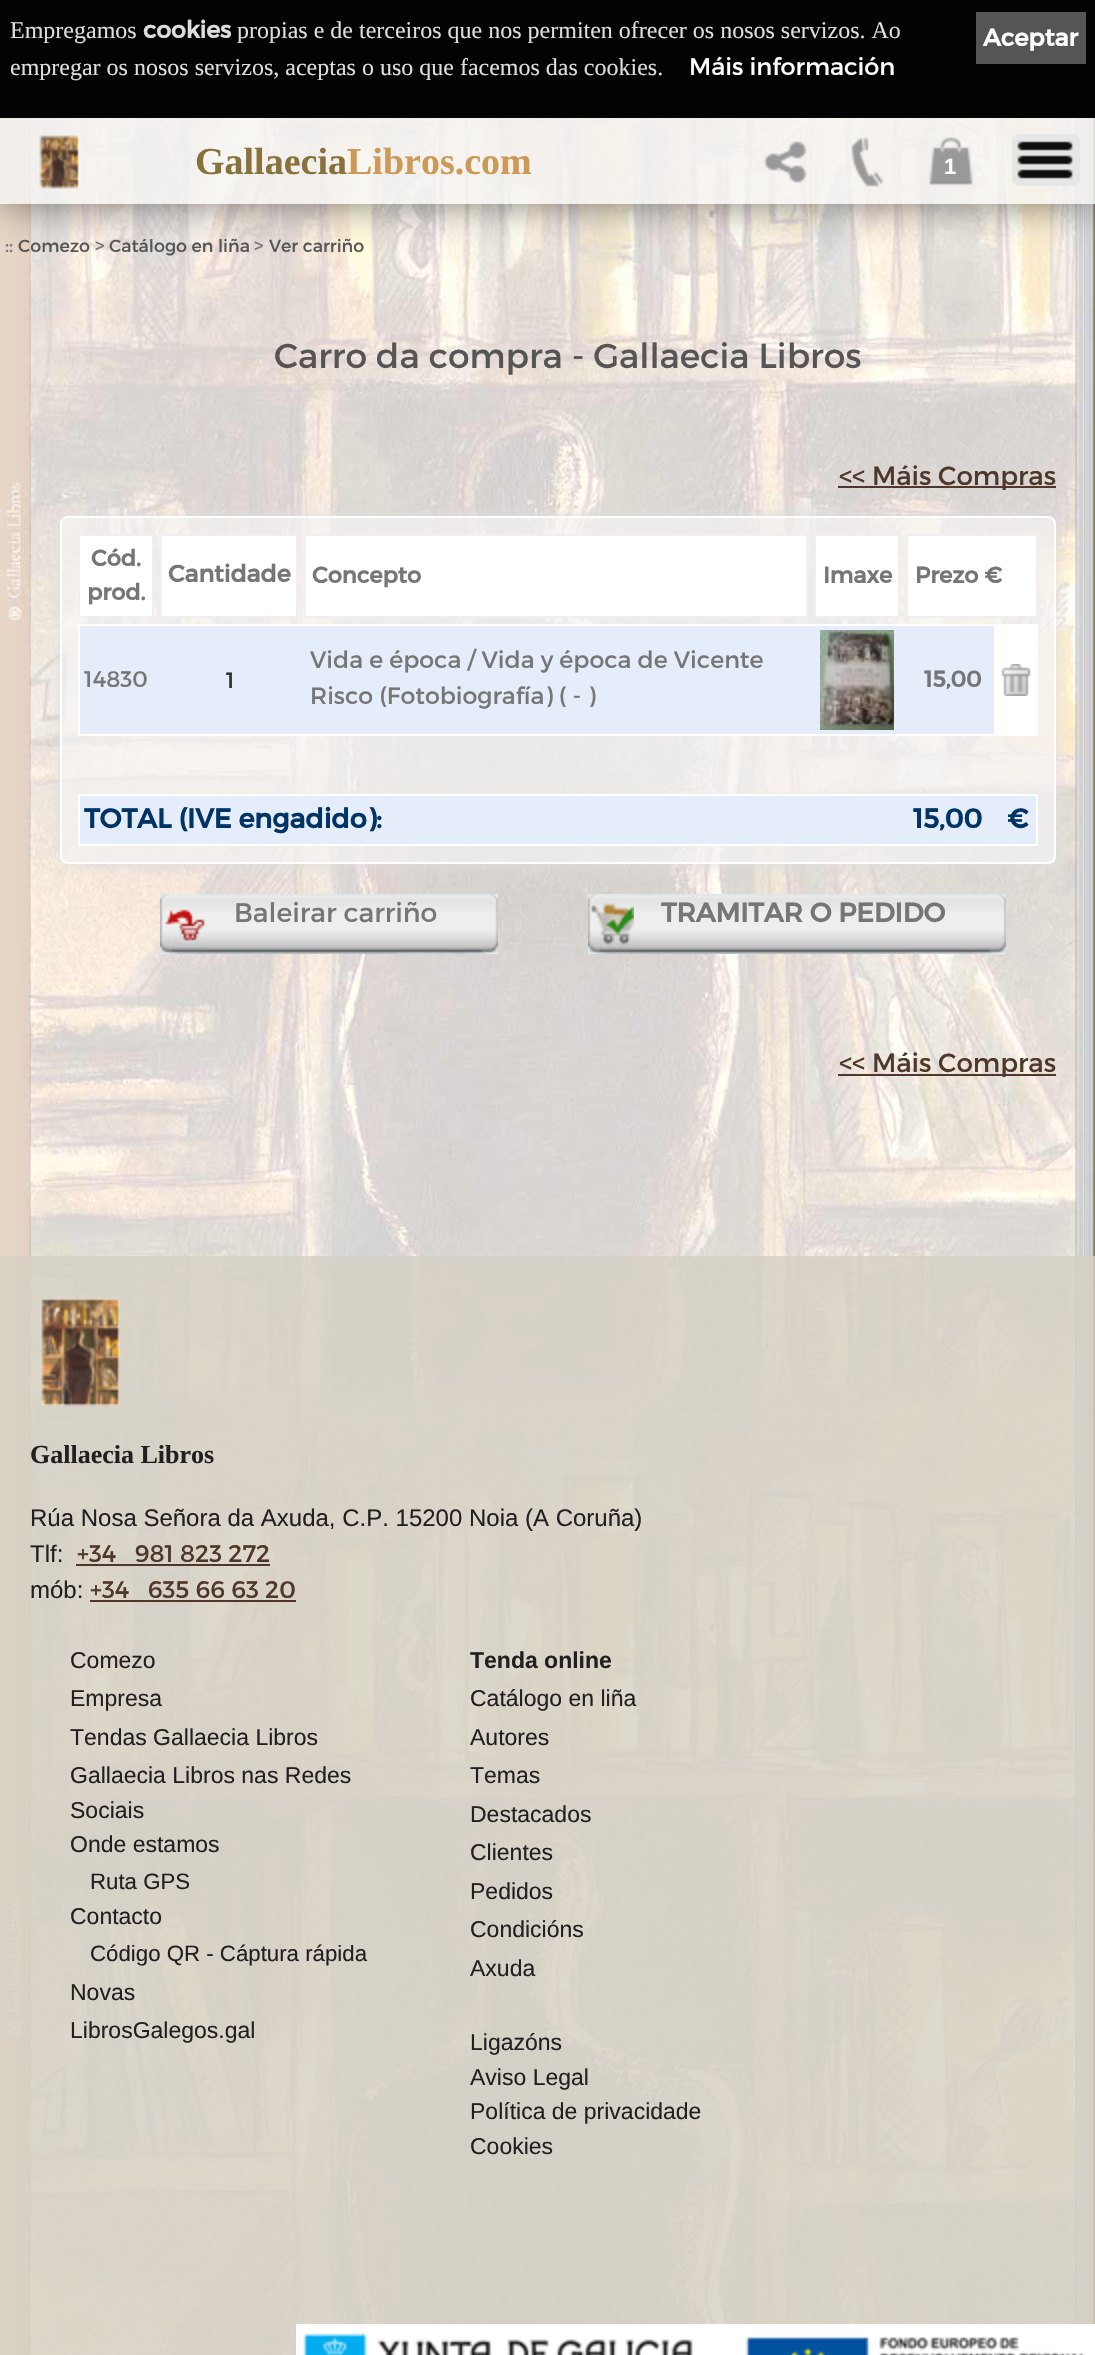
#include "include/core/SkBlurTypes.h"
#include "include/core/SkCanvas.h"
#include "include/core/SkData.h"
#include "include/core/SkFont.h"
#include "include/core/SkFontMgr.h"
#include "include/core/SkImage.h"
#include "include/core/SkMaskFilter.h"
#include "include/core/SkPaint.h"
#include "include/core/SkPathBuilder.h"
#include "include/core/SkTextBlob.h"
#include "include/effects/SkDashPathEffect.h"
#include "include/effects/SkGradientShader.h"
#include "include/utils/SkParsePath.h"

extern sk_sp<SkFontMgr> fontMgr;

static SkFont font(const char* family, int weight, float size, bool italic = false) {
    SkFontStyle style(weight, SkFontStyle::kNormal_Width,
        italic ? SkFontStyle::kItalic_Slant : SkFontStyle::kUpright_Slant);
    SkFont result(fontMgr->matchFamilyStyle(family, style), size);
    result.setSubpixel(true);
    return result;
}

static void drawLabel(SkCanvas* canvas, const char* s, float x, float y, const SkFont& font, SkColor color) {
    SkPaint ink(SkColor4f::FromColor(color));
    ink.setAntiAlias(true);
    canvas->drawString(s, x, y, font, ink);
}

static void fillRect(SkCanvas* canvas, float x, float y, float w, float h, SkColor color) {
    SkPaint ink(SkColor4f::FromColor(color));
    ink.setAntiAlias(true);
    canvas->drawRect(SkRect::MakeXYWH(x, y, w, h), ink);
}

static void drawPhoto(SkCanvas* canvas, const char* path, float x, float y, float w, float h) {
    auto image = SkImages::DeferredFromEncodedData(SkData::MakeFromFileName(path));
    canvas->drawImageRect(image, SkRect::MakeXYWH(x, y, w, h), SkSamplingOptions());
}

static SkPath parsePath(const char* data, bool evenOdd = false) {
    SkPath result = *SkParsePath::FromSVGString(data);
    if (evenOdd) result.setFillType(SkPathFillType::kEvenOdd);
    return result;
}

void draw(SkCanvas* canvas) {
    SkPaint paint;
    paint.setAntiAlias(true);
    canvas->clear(0xFFFFFFFF);
    drawPhoto(canvas, "assets/img1.png", 0, 0, 1095, 2355);
    fillRect(canvas, 0, 118, 1095, 86, 0xCCF5F4F3);
    canvas->save();
    canvas->clipPath(parsePath("M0 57H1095V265H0ZM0 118H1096V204H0Z", true), true);
    paint.setColor(0x80000000);
    paint.setMaskFilter(SkMaskFilter::MakeBlur(kNormal_SkBlurStyle, 20));
    canvas->drawRect(SkRect::MakeXYWH(0, 118, 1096, 86), paint);
    paint.setMaskFilter(nullptr);
    canvas->restore();
    fillRect(canvas, 0, 0, 1095, 118, 0xFC000000);
    SkFont font1 = font("Liberation Serif", 400, 24);
    drawLabel(canvas, "Empregamos", 10, 38, font1, 0xFFDDDDDD);
    SkFont font2 = font("Montserrat", 700, 23.5f);
    drawLabel(canvas, "cookies", 143, 38, font2, 0xFFDDDDDD);
    drawLabel(canvas, "propias e de terceiros que nos permiten ofrecer os nosos servizos. Ao", 237, 38, font1, 0xFFDDDDDD);
    fillRect(canvas, 976, 12, 110, 52, 0xFF555555);
    SkFont font3 = font("Montserrat", 700, 24);
    drawLabel(canvas, "Aceptar", 983, 46, font3, 0xFFFFFFFF);
    drawLabel(canvas, "empregar os nosos servizos, aceptas o uso que facemos das cookies.", 10, 75, font1, 0xFFDDDDDD);
    SkFont font4 = font("Montserrat", 400, 24);
    drawLabel(canvas, "Máis información", 689, 75, font4, 0xFFFFFFFF);
    drawPhoto(canvas, "assets/img2.png", 39, 135, 42, 54);
    SkFont font5 = font("Liberation Serif", 700, 38);
    drawLabel(canvas, "Gallaecia", 195, 174, font5, 0xFF89713B);
    drawLabel(canvas, "Libros.com", 347, 174, font5, 0xFFCC9A56);
    drawPhoto(canvas, "assets/img3.png", 763, 141, 44, 42);
    drawPhoto(canvas, "assets/img4.png", 851, 137, 33, 50);
    drawPhoto(canvas, "assets/img5.png", 929, 137, 44, 49);
    SkFont font6 = font("Liberation Sans", 700, 22);
    drawLabel(canvas, "1", 944, 174, font6, 0xFFFFFFFF);
    drawPhoto(canvas, "assets/img6.png", 1012, 134, 68, 52);
    SkFont font7 = font("Montserrat", 400, 19);
    drawLabel(canvas, "::", 5, 252, font7, 0xFF767676);
    SkFont font8 = font("Montserrat", 400, 17.5f);
    drawLabel(canvas, "Comezo", 18, 252, font8, 0xFF555555);
    drawLabel(canvas, ">", 95, 252, font7, 0xFF767676);
    drawLabel(canvas, "Catálogo en liña", 109, 252, font8, 0xFF555555);
    drawLabel(canvas, ">", 254, 252, font7, 0xFF767676);
    drawLabel(canvas, "Ver carriño", 269, 252, font8, 0xFF555555);
    SkFont font9 = font("Montserrat", 400, 34.5f);
    drawLabel(canvas, "Carro da compra - Gallaecia Libros", 274, 368, font9, 0xFF555555);
    fillRect(canvas, 838, 486, 218, 2, 0xFF4F372B);
    SkFont font10 = font("Montserrat", 400, 26.25f);
    drawLabel(canvas, "<< Máis Compras", 839, 485, font10, 0xFF4F372B);
    canvas->save();
    canvas->clipPath(parsePath("M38 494H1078V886H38ZM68 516H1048C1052.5 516 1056 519.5 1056 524V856C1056 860.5 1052.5 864 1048 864H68C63.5 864 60 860.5 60 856V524C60 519.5 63.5 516 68 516Z", true), true);
    paint.setColor(0xFFDFDFDF);
    paint.setMaskFilter(SkMaskFilter::MakeBlur(kNormal_SkBlurStyle, 7));
    canvas->drawRoundRect(SkRect::MakeXYWH(60, 516, 996, 348), 8, 8, paint);
    paint.setMaskFilter(nullptr);
    canvas->restore();
    paint.setColor(0xB3F5F4F3);
    canvas->drawRoundRect(SkRect::MakeXYWH(61, 517, 994, 346), 7, 7, paint);
    paint.setStroke(true);
    paint.setStrokeWidth(2);
    paint.setColor(0xFFFFFFFF);
    canvas->drawRoundRect(SkRect::MakeXYWH(61, 517, 994, 346), 7, 7, paint);
    paint.setStroke(false);
    canvas->drawRect(SkRect::MakeXYWH(79, 535, 74, 82), paint);
    paint.setStroke(true);
    paint.setColor(0xFFEFEFEF);
    canvas->drawRect(SkRect::MakeXYWH(79, 535, 74, 82), paint);
    SkFont font11 = font("Montserrat", 700, 22.5f);
    drawLabel(canvas, "Cód.", 91, 566, font11, 0xFF767676);
    drawLabel(canvas, "prod.", 87, 600, font11, 0xFF767676);
    paint.setStroke(false);
    paint.setColor(0xFFFFFFFF);
    canvas->drawRect(SkRect::MakeXYWH(161, 535, 136, 82), paint);
    paint.setStroke(true);
    paint.setColor(0xFFEFEFEF);
    canvas->drawRect(SkRect::MakeXYWH(161, 535, 136, 82), paint);
    SkFont font12 = font("Montserrat", 700, 23.7f);
    drawLabel(canvas, "Cantidade", 168, 582, font12, 0xFF767676);
    paint.setStroke(false);
    paint.setColor(0xFFFFFFFF);
    canvas->drawRect(SkRect::MakeXYWH(305, 535, 502, 82), paint);
    paint.setStroke(true);
    paint.setColor(0xFFEFEFEF);
    canvas->drawRect(SkRect::MakeXYWH(305, 535, 502, 82), paint);
    drawLabel(canvas, "Concepto", 312, 583, font11, 0xFF767676);
    paint.setStroke(false);
    paint.setColor(0xFFFFFFFF);
    canvas->drawRect(SkRect::MakeXYWH(815, 535, 84, 82), paint);
    paint.setStroke(true);
    paint.setColor(0xFFEFEFEF);
    canvas->drawRect(SkRect::MakeXYWH(815, 535, 84, 82), paint);
    drawLabel(canvas, "Imaxe", 823, 583, font11, 0xFF767676);
    paint.setStroke(false);
    paint.setColor(0xFFFFFFFF);
    canvas->drawRect(SkRect::MakeXYWH(907, 535, 130, 82), paint);
    paint.setStroke(true);
    paint.setColor(0xFFEFEFEF);
    canvas->drawRect(SkRect::MakeXYWH(907, 535, 130, 82), paint);
    drawLabel(canvas, "Prezo €", 915, 583, font11, 0xFF767676);
    fillRect(canvas, 80, 626, 914, 108, 0xFFE4EDF9);
    paint.setColor(0xFFFFFFFF);
    canvas->drawRect(SkRect::MakeXYWH(79, 625, 958, 110), paint);
    SkFont font13 = font("Montserrat", 400, 22.5f);
    drawLabel(canvas, "14830", 84, 687, font13, 0xFF767676);
    SkFont font14 = font("Montserrat", 400, 22);
    drawLabel(canvas, "1", 226, 688, font14, 0xFF333333);
    SkFont font15 = font("Montserrat", 400, 23.7f);
    drawLabel(canvas, "Vida e época / Vida y época de Vicente", 310, 668, font15, 0xFF767676);
    drawLabel(canvas, "Risco (Fotobiografía) ( - )", 310, 704, font15, 0xFF767676);
    drawPhoto(canvas, "assets/img7.png", 820, 630, 74, 100);
    drawLabel(canvas, "15,00", 924, 687, font11, 0xFF767676);
    fillRect(canvas, 994, 626, 42, 108, 0xFFFFFFFF);
    drawPhoto(canvas, "assets/img8.png", 1001, 664, 30, 32);
    paint.setStroke(false);
    paint.setColor(0xFFE4EDF9);
    canvas->drawRect(SkRect::MakeXYWH(79, 795, 958, 50), paint);
    paint.setStroke(true);
    paint.setColor(0xFFFFFFFF);
    canvas->drawRect(SkRect::MakeXYWH(79, 795, 958, 50), paint);
    SkFont font16 = font("Montserrat", 700, 27);
    drawLabel(canvas, "TOTAL (IVE engadido):", 84, 828, font16, 0xFF003366);
    drawLabel(canvas, "15,00", 913, 828, font16, 0xFF003366);
    drawLabel(canvas, "€", 1007, 828, font16, 0xFF003366);
    drawPhoto(canvas, "assets/img9.png", 206, 894, 292, 60);
    drawPhoto(canvas, "assets/img10.png", 160, 894, 46, 60);
    SkFont font17 = font("Montserrat", 400, 26.75f);
    drawLabel(canvas, "Baleirar carriño", 234, 922, font17, 0xFF767676);
    drawPhoto(canvas, "assets/img11.png", 634, 894, 372, 60);
    drawPhoto(canvas, "assets/img12.png", 588, 894, 46, 60);
    SkFont font18 = font("Montserrat", 700, 26.75f);
    drawLabel(canvas, "TRAMITAR O PEDIDO", 661, 922, font18, 0xFF767676);
    fillRect(canvas, 838, 1074, 218, 2, 0xFF4F372B);
    drawLabel(canvas, "<< Máis Compras", 839, 1072, font10, 0xFF4F372B);
    fillRect(canvas, 0, 1256, 1095, 1099, 0xCCD5CFC3);
    drawPhoto(canvas, "assets/img13.png", 40, 1298, 80, 109);
    SkFont font19 = font("Liberation Serif", 700, 26);
    drawLabel(canvas, "Gallaecia Libros", 30, 1463, font19, 0xFF231F20);
    SkFont font20 = font("Liberation Sans", 400, 24);
    drawLabel(canvas, "Rúa Nosa Señora da Axuda, C.P. 15200 Noia (A Coruña)", 30, 1526, font20, 0xFF231F20);
    drawLabel(canvas, "Tlf:", 30, 1562, font20, 0xFF231F20);
    drawLabel(canvas, "+34   981 823 272", 77, 1562, font4, 0xFF4F372B);
    fillRect(canvas, 76, 1564, 194, 2, 0xFF4F372B);
    drawLabel(canvas, "mób:", 30, 1598, font20, 0xFF231F20);
    drawLabel(canvas, "+34   635 66 63 20", 90, 1598, font4, 0xFF4F372B);
    fillRect(canvas, 90, 1600, 206, 2, 0xFF4F372B);
    SkFont font21 = font("Liberation Sans", 400, 23);
    drawLabel(canvas, "Comezo", 70, 1668, font21, 0xFF231F20);
    drawLabel(canvas, "Empresa", 70, 1706, font21, 0xFF231F20);
    drawLabel(canvas, "Tendas Gallaecia Libros", 70, 1745, font21, 0xFF231F20);
    drawLabel(canvas, "Gallaecia Libros nas Redes", 70, 1783, font21, 0xFF231F20);
    drawLabel(canvas, "Sociais", 70, 1818, font21, 0xFF231F20);
    drawLabel(canvas, "Onde estamos", 70, 1852, font21, 0xFF231F20);
    SkFont font22 = font("Liberation Sans", 400, 22.25f);
    drawLabel(canvas, "Ruta GPS", 90, 1889, font22, 0xFF231F20);
    drawLabel(canvas, "Contacto", 70, 1924, font21, 0xFF231F20);
    drawLabel(canvas, "Código QR - Cáptura rápida", 90, 1961, font22, 0xFF231F20);
    drawLabel(canvas, "Novas", 70, 2000, font21, 0xFF231F20);
    drawLabel(canvas, "LibrosGalegos.gal", 70, 2038, font21, 0xFF231F20);
    SkFont font23 = font("Liberation Sans", 700, 23);
    drawLabel(canvas, "Tenda online", 470, 1668, font23, 0xFF231F20);
    drawLabel(canvas, "Catálogo en liña", 470, 1706, font21, 0xFF231F20);
    drawLabel(canvas, "Autores", 470, 1745, font21, 0xFF231F20);
    drawLabel(canvas, "Temas", 470, 1783, font21, 0xFF231F20);
    drawLabel(canvas, "Destacados", 470, 1822, font21, 0xFF231F20);
    drawLabel(canvas, "Clientes", 470, 1860, font21, 0xFF231F20);
    drawLabel(canvas, "Pedidos", 470, 1899, font21, 0xFF231F20);
    drawLabel(canvas, "Condicións", 470, 1937, font21, 0xFF231F20);
    drawLabel(canvas, "Axuda", 470, 1976, font21, 0xFF231F20);
    drawLabel(canvas, "Ligazóns", 470, 2050, font21, 0xFF231F20);
    drawLabel(canvas, "Aviso Legal", 470, 2085, font21, 0xFF231F20);
    drawLabel(canvas, "Política de privacidade", 470, 2119, font21, 0xFF231F20);
    drawLabel(canvas, "Cookies", 470, 2154, font21, 0xFF231F20);
    drawPhoto(canvas, "assets/img14.png", 296, 2324, 799, 31);
}
